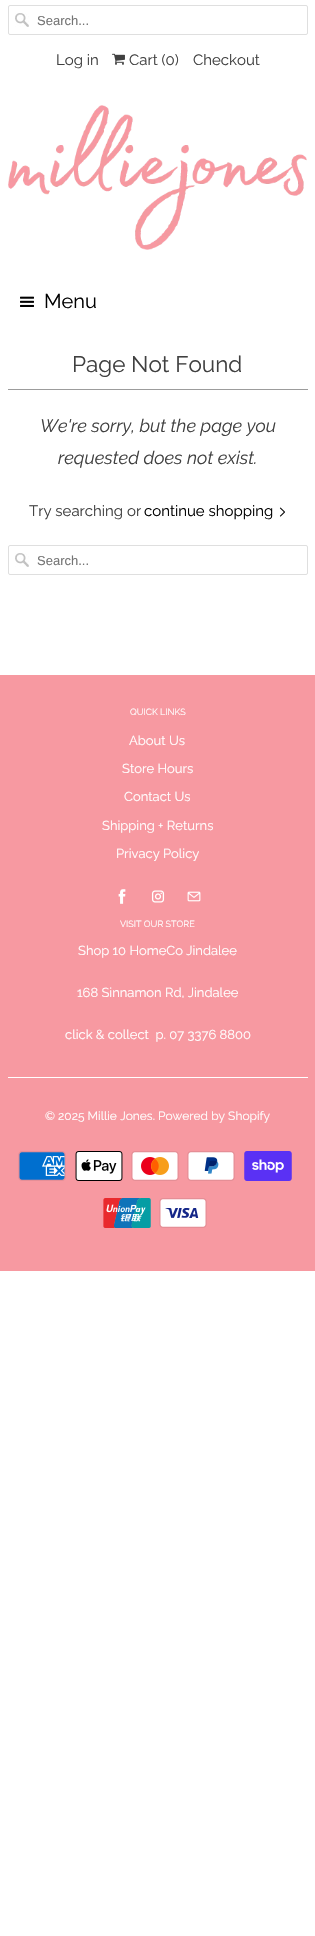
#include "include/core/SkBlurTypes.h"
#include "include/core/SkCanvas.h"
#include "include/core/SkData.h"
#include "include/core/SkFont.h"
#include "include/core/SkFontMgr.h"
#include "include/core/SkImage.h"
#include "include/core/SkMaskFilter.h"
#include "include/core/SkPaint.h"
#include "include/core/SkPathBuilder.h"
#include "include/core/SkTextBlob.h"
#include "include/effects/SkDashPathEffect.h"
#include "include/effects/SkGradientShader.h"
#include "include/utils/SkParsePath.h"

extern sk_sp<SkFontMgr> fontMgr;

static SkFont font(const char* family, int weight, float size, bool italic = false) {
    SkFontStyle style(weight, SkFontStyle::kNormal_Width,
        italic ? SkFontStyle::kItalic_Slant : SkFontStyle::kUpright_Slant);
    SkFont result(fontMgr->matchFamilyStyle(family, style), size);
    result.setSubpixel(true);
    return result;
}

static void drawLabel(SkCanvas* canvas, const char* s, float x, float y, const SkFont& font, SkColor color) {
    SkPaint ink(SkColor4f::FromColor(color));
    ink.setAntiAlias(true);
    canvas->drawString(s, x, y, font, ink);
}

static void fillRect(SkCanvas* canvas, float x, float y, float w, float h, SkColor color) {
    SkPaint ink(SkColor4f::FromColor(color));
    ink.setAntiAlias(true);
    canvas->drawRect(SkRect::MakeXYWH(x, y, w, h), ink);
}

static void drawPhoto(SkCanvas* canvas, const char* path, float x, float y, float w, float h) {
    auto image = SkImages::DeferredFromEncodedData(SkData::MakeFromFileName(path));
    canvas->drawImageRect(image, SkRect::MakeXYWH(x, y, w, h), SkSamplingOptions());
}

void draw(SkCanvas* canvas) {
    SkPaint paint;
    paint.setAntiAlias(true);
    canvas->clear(0xFFFFFFFF);
    drawPhoto(canvas, "assets/img1.png", 15, 13, 14, 14);
    paint.setStroke(true);
    paint.setStrokeWidth(1);
    paint.setColor(0xFFDFDFDF);
    canvas->drawRoundRect(SkRect::MakeXYWH(8.5f, 5.5f, 299, 29), 1.5f, 1.5f, paint);
    SkFont font1 = font("Liberation Sans", 400, 13);
    drawLabel(canvas, "Search...", 37, 25, font1, 0xFF757575);
    SkFont font2 = font("Raleway", 400, 15);
    drawLabel(canvas, "Log in", 56, 65, font2, 0xFF404040);
    drawPhoto(canvas, "assets/img2.png", 112, 53, 13, 12);
    drawLabel(canvas, "Cart (0)", 129, 65, font2, 0xFF404040);
    drawLabel(canvas, "Checkout", 193, 65, font2, 0xFF404040);
    drawPhoto(canvas, "assets/img3.png", 8, 105, 299, 145);
    drawPhoto(canvas, "assets/img4.png", 20, 296, 14, 11);
    SkFont font3 = font("Raleway", 400, 20);
    drawLabel(canvas, "Menu", 44, 308, font3, 0xFF000000);
    fillRect(canvas, 8, 389, 300, 1, 0xFF9C9C9C);
    SkFont font4 = font("Raleway", 400, 22.5f);
    drawLabel(canvas, "Page Not Found", 72, 372, font4, 0xFF404040);
    SkFont font5 = font("Raleway", 400, 18, true);
    drawLabel(canvas, "We're sorry, but the page you", 40, 432, font5, 0xFF404040);
    drawLabel(canvas, "requested does not exist.", 58, 464, font5, 0xFF404040);
    drawLabel(canvas, "Try searching or", 29, 516, font2, 0xFF404040);
    drawLabel(canvas, "continue shopping", 144, 516, font2, 0xFF000000);
    drawPhoto(canvas, "assets/img5.png", 279, 507, 6, 10);
    drawPhoto(canvas, "assets/img1.png", 15, 553, 14, 14);
    canvas->drawRoundRect(SkRect::MakeXYWH(8.5f, 545.5f, 299, 29), 1.5f, 1.5f, paint);
    drawLabel(canvas, "Search...", 37, 565, font1, 0xFF757575);
    fillRect(canvas, 0, 675, 315, 596, 0xFFF799A1);
    SkFont font6 = font("Raleway", 400, 9);
    drawLabel(canvas, "QUICK LINKS", 130, 715, font6, 0xFFFFFFFF);
    SkFont font7 = font("Raleway", 400, 13);
    drawLabel(canvas, "About Us", 129, 745, font7, 0xFFFFFFFF);
    drawLabel(canvas, "Store Hours", 122, 773, font7, 0xFFFFFFFF);
    drawLabel(canvas, "Contact Us", 124, 801, font7, 0xFFFFFFFF);
    drawLabel(canvas, "Shipping + Returns", 102, 830, font7, 0xFFFFFFFF);
    drawLabel(canvas, "Privacy Policy", 116, 858, font7, 0xFFFFFFFF);
    drawPhoto(canvas, "assets/img6.png", 118, 889, 8, 15);
    drawPhoto(canvas, "assets/img7.png", 151, 890, 14, 13);
    drawPhoto(canvas, "assets/img8.png", 187, 891, 14, 11);
    drawLabel(canvas, "VISIT OUR STORE", 120, 927, font6, 0xFFFFFFFF);
    drawLabel(canvas, "Shop 10 HomeCo Jindalee", 78, 955, font7, 0xFFFFFFFF);
    drawLabel(canvas, "168 Sinnamon Rd, Jindalee", 77, 997, font7, 0xFFFFFFFF);
    drawLabel(canvas, "click & collect  p. 07 3376 8800", 65, 1039, font7, 0xFFFFFFFF);
    fillRect(canvas, 8, 1077, 300, 1, 0xFFFFFFFF);
    SkFont font8 = font("Raleway", 400, 12);
    drawLabel(canvas, "© 2025 Millie Jones. Powered by Shopify", 45, 1120, font8, 0xFFFFFFFF);
    drawPhoto(canvas, "assets/img9.png", 18, 1151, 48, 30);
    drawPhoto(canvas, "assets/img10.png", 75, 1151, 48, 30);
    drawPhoto(canvas, "assets/img11.png", 131, 1151, 48, 30);
    drawPhoto(canvas, "assets/img12.png", 187, 1151, 48, 30);
    drawPhoto(canvas, "assets/img13.png", 244, 1151, 48, 30);
    drawPhoto(canvas, "assets/img14.png", 103, 1198, 48, 30);
    drawPhoto(canvas, "assets/img15.png", 159, 1198, 48, 30);
}
